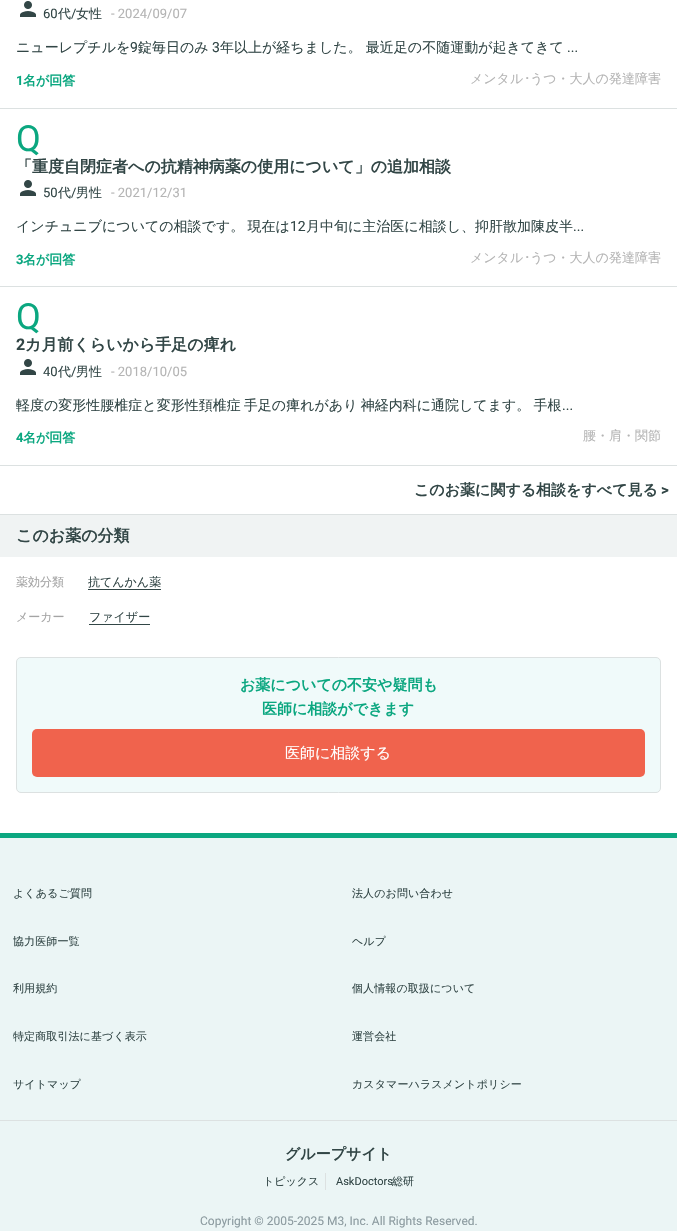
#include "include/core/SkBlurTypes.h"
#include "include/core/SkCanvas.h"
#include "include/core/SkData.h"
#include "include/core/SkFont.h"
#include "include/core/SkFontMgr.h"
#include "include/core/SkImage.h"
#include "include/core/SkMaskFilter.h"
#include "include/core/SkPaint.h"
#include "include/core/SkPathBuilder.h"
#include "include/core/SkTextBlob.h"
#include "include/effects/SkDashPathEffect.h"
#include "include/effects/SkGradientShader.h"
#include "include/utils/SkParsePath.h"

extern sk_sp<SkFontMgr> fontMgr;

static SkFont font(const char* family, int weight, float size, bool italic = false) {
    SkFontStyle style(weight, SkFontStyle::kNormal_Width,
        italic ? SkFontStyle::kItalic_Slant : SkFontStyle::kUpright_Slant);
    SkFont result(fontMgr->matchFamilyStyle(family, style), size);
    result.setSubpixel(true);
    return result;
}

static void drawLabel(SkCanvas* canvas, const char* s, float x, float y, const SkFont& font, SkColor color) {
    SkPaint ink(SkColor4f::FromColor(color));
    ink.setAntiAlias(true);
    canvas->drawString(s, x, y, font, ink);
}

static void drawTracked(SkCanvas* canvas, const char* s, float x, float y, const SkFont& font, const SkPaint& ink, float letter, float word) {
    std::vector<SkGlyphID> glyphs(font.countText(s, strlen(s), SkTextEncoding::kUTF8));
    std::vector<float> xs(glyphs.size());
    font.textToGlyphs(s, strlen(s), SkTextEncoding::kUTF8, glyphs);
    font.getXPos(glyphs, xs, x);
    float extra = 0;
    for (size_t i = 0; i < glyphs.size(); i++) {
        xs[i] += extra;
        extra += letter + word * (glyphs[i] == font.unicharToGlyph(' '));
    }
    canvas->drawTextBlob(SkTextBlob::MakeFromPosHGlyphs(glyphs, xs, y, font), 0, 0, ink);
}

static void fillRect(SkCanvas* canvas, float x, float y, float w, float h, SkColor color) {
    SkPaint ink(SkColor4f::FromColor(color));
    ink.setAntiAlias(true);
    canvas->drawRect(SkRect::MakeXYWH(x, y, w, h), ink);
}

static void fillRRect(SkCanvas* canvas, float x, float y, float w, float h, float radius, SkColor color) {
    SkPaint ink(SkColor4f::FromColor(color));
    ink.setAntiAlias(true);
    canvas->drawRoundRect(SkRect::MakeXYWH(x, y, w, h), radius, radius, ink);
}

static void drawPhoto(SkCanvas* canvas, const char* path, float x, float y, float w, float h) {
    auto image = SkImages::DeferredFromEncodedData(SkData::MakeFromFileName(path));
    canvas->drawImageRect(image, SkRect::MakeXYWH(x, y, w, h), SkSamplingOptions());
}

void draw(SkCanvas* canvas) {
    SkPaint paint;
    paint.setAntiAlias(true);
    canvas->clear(0xFFFFFFFF);
    fillRect(canvas, 0, 108, 677, 1, 0xFFDCE1E1);
    drawPhoto(canvas, "assets/img1.png", 20, 1, 16, 16);
    SkFont font1 = font("Roboto", 400, 13);
    drawLabel(canvas, "60", 43, 18, font1, 0xFF324646);
    SkFont font2 = font("WenQuanYi Zen Hei", 500, 13);
    drawLabel(canvas, "代", 58, 18, font2, 0xFF324646);
    drawLabel(canvas, "/", 71, 18, font1, 0xFF324646);
    drawLabel(canvas, "女性", 76, 18, font2, 0xFF324646);
    drawLabel(canvas, "- 2024/09/07", 111, 18, font1, 0xFFB4B4B4);
    SkFont font3 = font("WenQuanYi Zen Hei", 500, 14);
    drawLabel(canvas, "ニューレプチルを", 16, 52, font3, 0xFF324646);
    SkFont font4 = font("Roboto", 400, 14);
    drawLabel(canvas, "9", 130, 52, font4, 0xFF324646);
    drawLabel(canvas, "錠毎日のみ", 138, 52, font3, 0xFF324646);
    drawLabel(canvas, "3", 212, 52, font4, 0xFF324646);
    drawLabel(canvas, "年以上が経ちました。 最近足の不随運動が起きてきて", 220, 52, font3, 0xFF324646);
    drawLabel(canvas, "...", 567, 52, font4, 0xFF324646);
    SkFont font5 = font("Roboto", 700, 13);
    drawLabel(canvas, "1", 16, 85, font5, 0xFF0BA780);
    SkFont font6 = font("WenQuanYi Zen Hei", 700, 13);
    drawLabel(canvas, "名が回答", 23, 85, font6, 0xFF0BA780);
    drawLabel(canvas, "メンタル", 470, 83, font2, 0xFFB4B4B4);
    SkFont font7 = font("IPAPGothic", 400, 13);
    drawLabel(canvas, "･", 524, 83, font7, 0xFFB4B4B4);
    drawLabel(canvas, "うつ・大人の発達障害", 530, 83, font2, 0xFFB4B4B4);
    fillRect(canvas, 0, 286, 677, 1, 0xFFDCE1E1);
    SkFont font8 = font("Roboto", 400, 36);
    drawLabel(canvas, "Q", 16, 151, font8, 0xFF0BA780);
    SkFont font9 = font("WenQuanYi Zen Hei", 700, 16);
    drawLabel(canvas, "「重度自閉症者への抗精神病薬の使用について」の追加相談", 16, 172, font9, 0xFF324646);
    drawPhoto(canvas, "assets/img1.png", 20, 180, 16, 16);
    drawLabel(canvas, "50", 43, 197, font1, 0xFF324646);
    drawLabel(canvas, "代", 58, 197, font2, 0xFF324646);
    drawLabel(canvas, "/", 71, 197, font1, 0xFF324646);
    drawLabel(canvas, "男性", 76, 197, font2, 0xFF324646);
    drawLabel(canvas, "- 2021/12/31", 111, 197, font1, 0xFFB4B4B4);
    paint.setColor(0xFF324646);
    drawTracked(canvas, "インチュニブについての相談です。 現在は", 16, 231, font3, paint, 0, -1);
    drawLabel(canvas, "12", 290, 231, font4, 0xFF324646);
    drawLabel(canvas, "月中旬に主治医に相談し、抑肝散加陳皮半", 306, 231, font3, 0xFF324646);
    drawLabel(canvas, "...", 573, 231, font4, 0xFF324646);
    drawLabel(canvas, "3", 16, 264, font5, 0xFF0BA780);
    drawLabel(canvas, "名が回答", 23, 264, font6, 0xFF0BA780);
    drawLabel(canvas, "メンタル", 470, 262, font2, 0xFFB4B4B4);
    drawLabel(canvas, "･", 524, 262, font7, 0xFFB4B4B4);
    drawLabel(canvas, "うつ・大人の発達障害", 530, 262, font2, 0xFFB4B4B4);
    fillRect(canvas, 0, 465, 677, 1, 0xFFDCE1E1);
    drawLabel(canvas, "Q", 16, 329, font8, 0xFF0BA780);
    SkFont font10 = font("Roboto", 700, 16);
    drawLabel(canvas, "2", 16, 350, font10, 0xFF324646);
    drawLabel(canvas, "カ月前くらいから手足の痺れ", 25, 350, font9, 0xFF324646);
    drawPhoto(canvas, "assets/img1.png", 20, 359, 16, 16);
    drawLabel(canvas, "40", 43, 376, font1, 0xFF324646);
    drawLabel(canvas, "代", 58, 376, font2, 0xFF324646);
    drawLabel(canvas, "/", 71, 376, font1, 0xFF324646);
    drawLabel(canvas, "男性", 76, 376, font2, 0xFF324646);
    drawLabel(canvas, "- 2018/10/05", 111, 376, font1, 0xFFB4B4B4);
    drawTracked(canvas, "軽度の変形性腰椎症と変形性頚椎症 手足の痺れがあり 神経内科に通院してます。 手根", 16, 410, font3, paint, 0, -1);
    drawLabel(canvas, "...", 562, 410, font4, 0xFF324646);
    drawLabel(canvas, "4", 16, 442, font5, 0xFF0BA780);
    drawLabel(canvas, "名が回答", 23, 442, font6, 0xFF0BA780);
    drawLabel(canvas, "腰・肩・関節", 583, 440, font2, 0xFFB4B4B4);
    fillRect(canvas, 0, 514, 677, 1, 0xFFDCE1E1);
    SkFont font11 = font("WenQuanYi Zen Hei", 700, 15);
    drawLabel(canvas, "このお薬に関する相談をすべて見る", 414, 495, font11, 0xFF324646);
    SkFont font12 = font("Roboto", 700, 15);
    drawLabel(canvas, ">", 661, 495, font12, 0xFF324646);
    fillRect(canvas, 0, 515, 677, 42, 0xFFF0F3F3);
    drawLabel(canvas, "このお薬の分類", 16, 541, font9, 0xFF324646);
    SkFont font13 = font("WenQuanYi Zen Hei", 500, 12);
    drawLabel(canvas, "薬効分類", 16, 586, font13, 0xFFA4A4A4);
    drawLabel(canvas, "抗てんかん薬", 88, 586, font13, 0xFF324646);
    fillRect(canvas, 88, 589, 73, 1, 0xFF324646);
    drawLabel(canvas, "メーカー", 16, 621, font13, 0xFFA4A4A4);
    drawLabel(canvas, "ファイザー", 89, 621, font13, 0xFF324646);
    fillRect(canvas, 89, 624, 61, 1, 0xFF324646);
    paint.setColor(0xFFF0FAFA);
    canvas->drawRoundRect(SkRect::MakeXYWH(16.5f, 657.5f, 644, 135), 4.5f, 4.5f, paint);
    paint.setStroke(true);
    paint.setStrokeWidth(1);
    paint.setColor(0xFFDCE1E1);
    canvas->drawRoundRect(SkRect::MakeXYWH(16.5f, 657.5f, 644, 135), 4.5f, 4.5f, paint);
    drawLabel(canvas, "お薬についての不安や疑問も", 240, 690, font11, 0xFF0BA780);
    drawLabel(canvas, "医師に相談ができます", 262, 714, font11, 0xFF0BA780);
    fillRRect(canvas, 32, 729, 613, 48, 5, 0xFFF0634D);
    SkFont font14 = font("WenQuanYi Zen Hei", 500, 15);
    drawLabel(canvas, "医師に相談する", 285, 758, font14, 0xFFFFFFFF);
    fillRect(canvas, 0, 838, 677, 393, 0xFFEBF5F5);
    fillRect(canvas, 0, 833, 677, 5, 0xFF0BA780);
    fillRect(canvas, 0, 1120, 677, 1, 0xFFDCE1E1);
    SkFont font15 = font("WenQuanYi Zen Hei", 500, 11);
    paint.setStroke(false);
    paint.setColor(0xFF324646);
    drawTracked(canvas, "よくあるご質問", 13, 897, font15, paint, 0.1f, 0);
    drawTracked(canvas, "法人のお問い合わせ", 352, 897, font15, paint, 0.1f, 0);
    drawTracked(canvas, "協力医師一覧", 13, 945, font15, paint, 0.1f, 0);
    drawTracked(canvas, "ヘルプ", 352, 945, font15, paint, 0.1f, 0);
    drawTracked(canvas, "利用規約", 13, 992, font15, paint, 0.1f, 0);
    drawTracked(canvas, "個人情報の取扱について", 352, 992, font15, paint, 0.1f, 0);
    drawTracked(canvas, "特定商取引法に基づく表示", 13, 1040, font15, paint, 0.1f, 0);
    drawTracked(canvas, "運営会社", 352, 1040, font15, paint, 0.1f, 0);
    drawTracked(canvas, "サイトマップ", 13, 1088, font15, paint, 0.1f, 0);
    drawTracked(canvas, "カスタマーハラスメントポリシー", 352, 1088, font15, paint, 0.1f, 0);
    drawLabel(canvas, "グループサイト", 285, 1159, font11, 0xFF324646);
    fillRect(canvas, 325, 1173, 1, 17, 0xFFDCE1E1);
    drawLabel(canvas, "トピックス", 263, 1185, font15, 0xFF324646);
    SkFont font16 = font("Roboto", 400, 11);
    drawLabel(canvas, "AskDoctors", 336, 1185, font16, 0xFF324646);
    drawLabel(canvas, "総研", 392, 1185, font15, 0xFF324646);
    SkFont font17 = font("Roboto", 400, 12);
    drawLabel(canvas, "Copyright © 2005-2025 M3, Inc. All Rights Reserved.", 200, 1225, font17, 0xFF8C9BA0);
}
